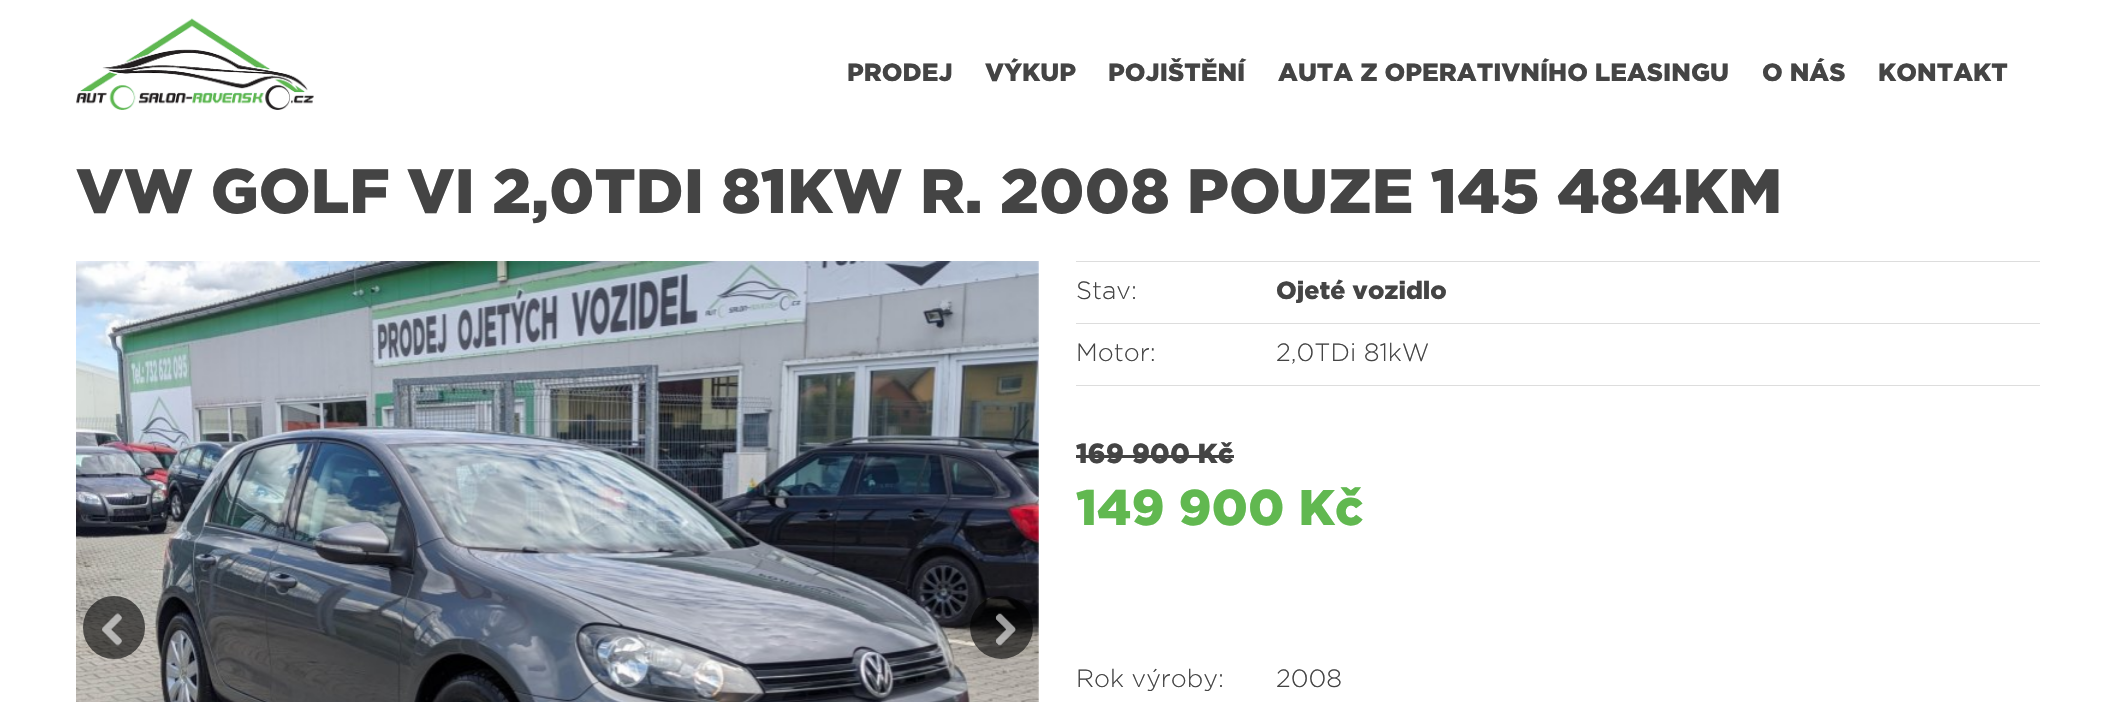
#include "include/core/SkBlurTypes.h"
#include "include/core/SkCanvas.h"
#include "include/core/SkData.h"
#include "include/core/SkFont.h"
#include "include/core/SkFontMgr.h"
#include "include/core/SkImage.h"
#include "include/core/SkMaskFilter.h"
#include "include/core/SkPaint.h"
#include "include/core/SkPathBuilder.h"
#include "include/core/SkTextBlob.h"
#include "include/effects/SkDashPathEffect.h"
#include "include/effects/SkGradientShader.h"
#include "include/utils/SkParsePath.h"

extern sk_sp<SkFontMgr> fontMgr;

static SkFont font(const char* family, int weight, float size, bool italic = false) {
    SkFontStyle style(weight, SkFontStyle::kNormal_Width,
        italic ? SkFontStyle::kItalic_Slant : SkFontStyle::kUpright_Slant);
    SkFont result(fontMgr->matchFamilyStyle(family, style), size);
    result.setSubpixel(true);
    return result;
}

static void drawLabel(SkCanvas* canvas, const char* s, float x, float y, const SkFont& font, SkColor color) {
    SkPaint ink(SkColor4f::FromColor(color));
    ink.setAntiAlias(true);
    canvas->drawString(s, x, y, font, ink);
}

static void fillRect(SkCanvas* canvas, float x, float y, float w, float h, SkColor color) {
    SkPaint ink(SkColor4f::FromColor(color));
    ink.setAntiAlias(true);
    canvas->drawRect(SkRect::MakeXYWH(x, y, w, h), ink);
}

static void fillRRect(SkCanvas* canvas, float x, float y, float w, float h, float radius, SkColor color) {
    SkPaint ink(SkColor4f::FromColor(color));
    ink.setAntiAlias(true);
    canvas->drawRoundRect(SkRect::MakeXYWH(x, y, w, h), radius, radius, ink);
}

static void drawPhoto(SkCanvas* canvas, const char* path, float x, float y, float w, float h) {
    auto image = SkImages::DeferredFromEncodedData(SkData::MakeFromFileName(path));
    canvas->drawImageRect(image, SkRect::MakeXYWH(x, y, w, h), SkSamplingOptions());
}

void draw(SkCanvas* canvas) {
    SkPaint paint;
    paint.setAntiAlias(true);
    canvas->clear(0xFFFFFFFF);
    drawPhoto(canvas, "assets/img1.png", 76, 18, 238, 92);
    SkFont font1 = font("Gotham", 900, 25);
    drawLabel(canvas, "PRODEJ", 847, 81, font1, 0xFF444444);
    drawLabel(canvas, "VÝKUP", 985, 81, font1, 0xFF444444);
    drawLabel(canvas, "POJIŠTĚNÍ", 1108, 81, font1, 0xFF444444);
    drawLabel(canvas, "AUTA Z OPERATIVNÍHO LEASINGU", 1278, 81, font1, 0xFF444444);
    drawLabel(canvas, "O NÁS", 1762, 81, font1, 0xFF444444);
    drawLabel(canvas, "KONTAKT", 1878, 81, font1, 0xFF444444);
    SkFont font2 = font("Gotham", 900, 62.5f);
    drawLabel(canvas, "VW GOLF VI 2,0TDI 81KW R. 2008 POUZE 145 484KM", 76, 213, font2, 0xFF444444);
    drawPhoto(canvas, "assets/img2.png", 76, 261, 963, 441);
    fillRRect(canvas, 83, 596, 62, 63, 31, 0x99000000);
    drawPhoto(canvas, "assets/img3.png", 102, 613, 20, 33);
    paint.setColor(0x99000000);
    canvas->drawCircle(1001.5f, 627.5f, 31.5f, paint);
    drawPhoto(canvas, "assets/img4.png", 995, 613, 21, 33);
    SkFont font3 = font("Gotham", 300, 25);
    drawLabel(canvas, "Stav:", 1076, 299, font3, 0xFF444444);
    fillRect(canvas, 1076, 261, 964, 1, 0xFFDDDDDD);
    drawLabel(canvas, "Ojeté vozidlo", 1276, 299, font1, 0xFF444444);
    drawLabel(canvas, "Motor:", 1076, 361, font3, 0xFF444444);
    fillRect(canvas, 1076, 323, 964, 1, 0xFFDDDDDD);
    drawLabel(canvas, "2,0TDi 81kW", 1276, 361, font3, 0xFF444444);
    fillRect(canvas, 1076, 385, 964, 1, 0xFFDDDDDD);
    SkFont font4 = font("Gotham", 900, 27.5f);
    drawLabel(canvas, "169 900 Kč", 1076, 463, font4, 0xFF444444);
    fillRect(canvas, 1076, 455, 158, 3, 0xFF444444);
    SkFont font5 = font("Gotham", 900, 50);
    drawLabel(canvas, "149 900 Kč", 1076, 525, font5, 0xFF61B850);
    drawLabel(canvas, "Rok výroby:", 1076, 687, font3, 0xFF444444);
    drawLabel(canvas, "2008", 1276, 687, font3, 0xFF444444);
}
